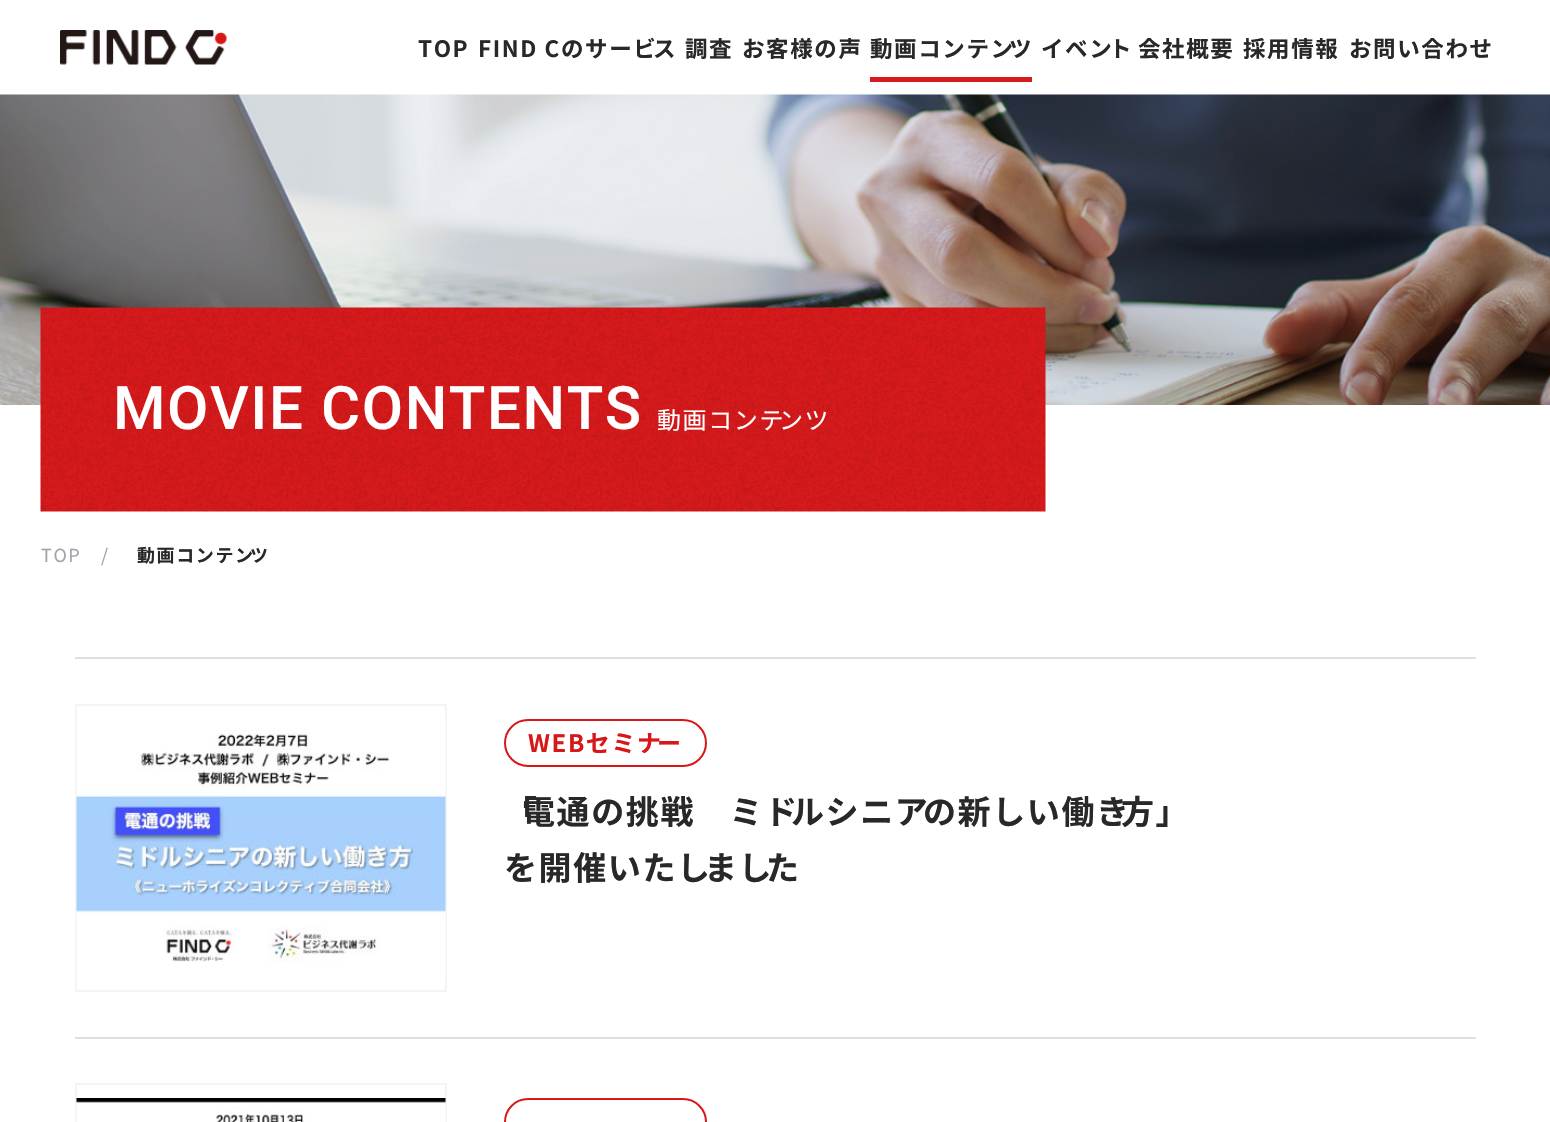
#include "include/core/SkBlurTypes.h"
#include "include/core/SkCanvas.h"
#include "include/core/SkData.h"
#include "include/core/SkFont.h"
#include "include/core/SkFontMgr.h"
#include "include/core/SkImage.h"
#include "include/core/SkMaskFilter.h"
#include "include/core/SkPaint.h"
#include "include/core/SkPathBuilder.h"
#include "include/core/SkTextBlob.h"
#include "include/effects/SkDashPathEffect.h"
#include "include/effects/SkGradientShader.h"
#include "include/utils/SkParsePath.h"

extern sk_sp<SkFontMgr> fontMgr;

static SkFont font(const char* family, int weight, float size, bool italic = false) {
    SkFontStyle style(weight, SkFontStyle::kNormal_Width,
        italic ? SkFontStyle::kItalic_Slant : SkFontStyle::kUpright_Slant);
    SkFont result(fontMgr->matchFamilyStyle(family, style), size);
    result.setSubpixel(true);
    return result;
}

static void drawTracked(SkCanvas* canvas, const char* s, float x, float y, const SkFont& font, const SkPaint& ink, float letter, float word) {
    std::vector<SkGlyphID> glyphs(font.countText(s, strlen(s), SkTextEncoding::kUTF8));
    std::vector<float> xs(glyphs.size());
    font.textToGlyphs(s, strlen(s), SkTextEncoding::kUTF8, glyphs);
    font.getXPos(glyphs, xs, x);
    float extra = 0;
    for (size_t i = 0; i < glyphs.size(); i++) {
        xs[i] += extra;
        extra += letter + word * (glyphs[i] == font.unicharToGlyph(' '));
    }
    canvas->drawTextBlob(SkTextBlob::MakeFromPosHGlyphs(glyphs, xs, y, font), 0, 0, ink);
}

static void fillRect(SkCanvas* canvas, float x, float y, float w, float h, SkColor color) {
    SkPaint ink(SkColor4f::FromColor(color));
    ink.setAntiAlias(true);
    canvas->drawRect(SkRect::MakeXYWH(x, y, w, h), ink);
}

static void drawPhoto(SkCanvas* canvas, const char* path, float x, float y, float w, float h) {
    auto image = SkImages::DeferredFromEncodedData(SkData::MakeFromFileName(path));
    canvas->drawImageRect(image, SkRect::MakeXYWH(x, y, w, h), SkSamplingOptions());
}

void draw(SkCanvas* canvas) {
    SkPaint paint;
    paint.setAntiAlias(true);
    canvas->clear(0xFFFFFFFF);
    drawPhoto(canvas, "assets/img1.png", 60, 30, 167, 35);
    SkFont font1 = font("Noto Sans JP", 700, 22.5f);
    paint.setColor(0xFF282828);
    drawTracked(canvas, "TOP", 418, 57, font1, paint, 1.6f, 0);
    drawTracked(canvas, "FIND Cのサービ", 478, 57, font1, paint, 1.6f, 0);
    drawTracked(canvas, "ス", 653, 57, font1, paint, 1.6f, 0);
    drawTracked(canvas, "調査", 685, 57, font1, paint, 1.6f, 0);
    drawTracked(canvas, "お客様の声", 742, 57, font1, paint, 1.6f, 0);
    drawTracked(canvas, "動画コンテン", 870, 57, font1, paint, 1.6f, 0);
    drawTracked(canvas, "ツ", 1009, 57, font1, paint, 1.6f, 0);
    fillRect(canvas, 870, 77, 162, 5, 0xFFD71A1C);
    drawTracked(canvas, "イベン", 1041, 57, font1, paint, 1.6f, 0);
    drawTracked(canvas, "ト", 1109, 57, font1, paint, 1.6f, 0);
    drawTracked(canvas, "会社概要", 1138, 57, font1, paint, 1.6f, 0);
    drawTracked(canvas, "採用情報", 1243, 57, font1, paint, 1.6f, 0);
    drawTracked(canvas, "お問い合わせ", 1349, 57, font1, paint, 1.6f, 0);
    drawPhoto(canvas, "assets/img2.png", 0, 94, 1550, 311);
    drawPhoto(canvas, "assets/img3.png", 40, 307, 1006, 205);
    SkFont font2 = font("Roboto", 500, 60);
    paint.setColor(0xFFFFFFFF);
    drawTracked(canvas, "MOVIE CONTENTS", 113, 429, font2, paint, 1.6f, 0);
    SkFont font3 = font("Noto Sans JP", 400, 24);
    drawTracked(canvas, "動画コンテ", 657, 429, font3, paint, 1.6f, 0);
    drawTracked(canvas, "ンツ", 779, 429, font3, paint, 1.6f, 0);
    SkFont font4 = font("Noto Sans JP", 400, 18);
    paint.setColor(0xFFA1A4AB);
    drawTracked(canvas, "TOP　/", 41, 562, font4, paint, 1.6f, 0);
    SkFont font5 = font("Noto Sans JP", 700, 18);
    paint.setColor(0xFF282828);
    drawTracked(canvas, "動画コンテン", 137, 562, font5, paint, 1.6f, 0);
    drawTracked(canvas, "ツ", 250, 562, font5, paint, 1.6f, 0);
    fillRect(canvas, 75, 657, 1401, 2, 0xFFE1E0E0);
    paint.setStroke(true);
    paint.setStrokeWidth(2);
    paint.setColor(0xFFF4F4F4);
    canvas->drawRect(SkRect::MakeXYWH(76, 705, 370, 286), paint);
    drawPhoto(canvas, "assets/img4.png", 76, 719, 370, 259);
    paint.setColor(0xFFD71718);
    canvas->drawRoundRect(SkRect::MakeXYWH(505, 720, 201, 46), 23, 23, paint);
    SkFont font6 = font("Noto Sans JP", 700, 24);
    paint.setStroke(false);
    drawTracked(canvas, "WEBセミナ", 528, 752, font6, paint, 1.6f, 0);
    drawTracked(canvas, "ー", 657, 752, font6, paint, 1.6f, 0);
    SkFont font7 = font("Noto Sans JP", 700, 33);
    paint.setColor(0xFF282828);
    drawTracked(canvas, "「", 504, 824, font7, paint, 1.6f, 0);
    drawTracked(canvas, "電通の挑戦　ミド", 522, 824, font7, paint, 1.6f, 0);
    drawTracked(canvas, "ルシニア", 791, 824, font7, paint, 1.6f, 0);
    drawTracked(canvas, "の新しい働き", 923, 824, font7, paint, 1.6f, 0);
    drawTracked(canvas, "方」", 1121, 824, font7, paint, 1.6f, 0);
    drawTracked(canvas, "を開催いたし", 504, 880, font7, paint, 1.6f, 0);
    drawTracked(canvas, "まし", 704, 880, font7, paint, 1.6f, 0);
    drawTracked(canvas, "た", 766, 880, font7, paint, 1.6f, 0);
    fillRect(canvas, 75, 1037, 1401, 2, 0xFFE1E0E0);
    paint.setStroke(true);
    paint.setColor(0xFFF4F4F4);
    canvas->drawRect(SkRect::MakeXYWH(76, 1084, 370, 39), paint);
    drawPhoto(canvas, "assets/img5.png", 76, 1098, 370, 24);
    paint.setColor(0xFFD71718);
    canvas->drawRoundRect(SkRect::MakeXYWH(505, 1099, 201, 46), 23, 23, paint);
}
